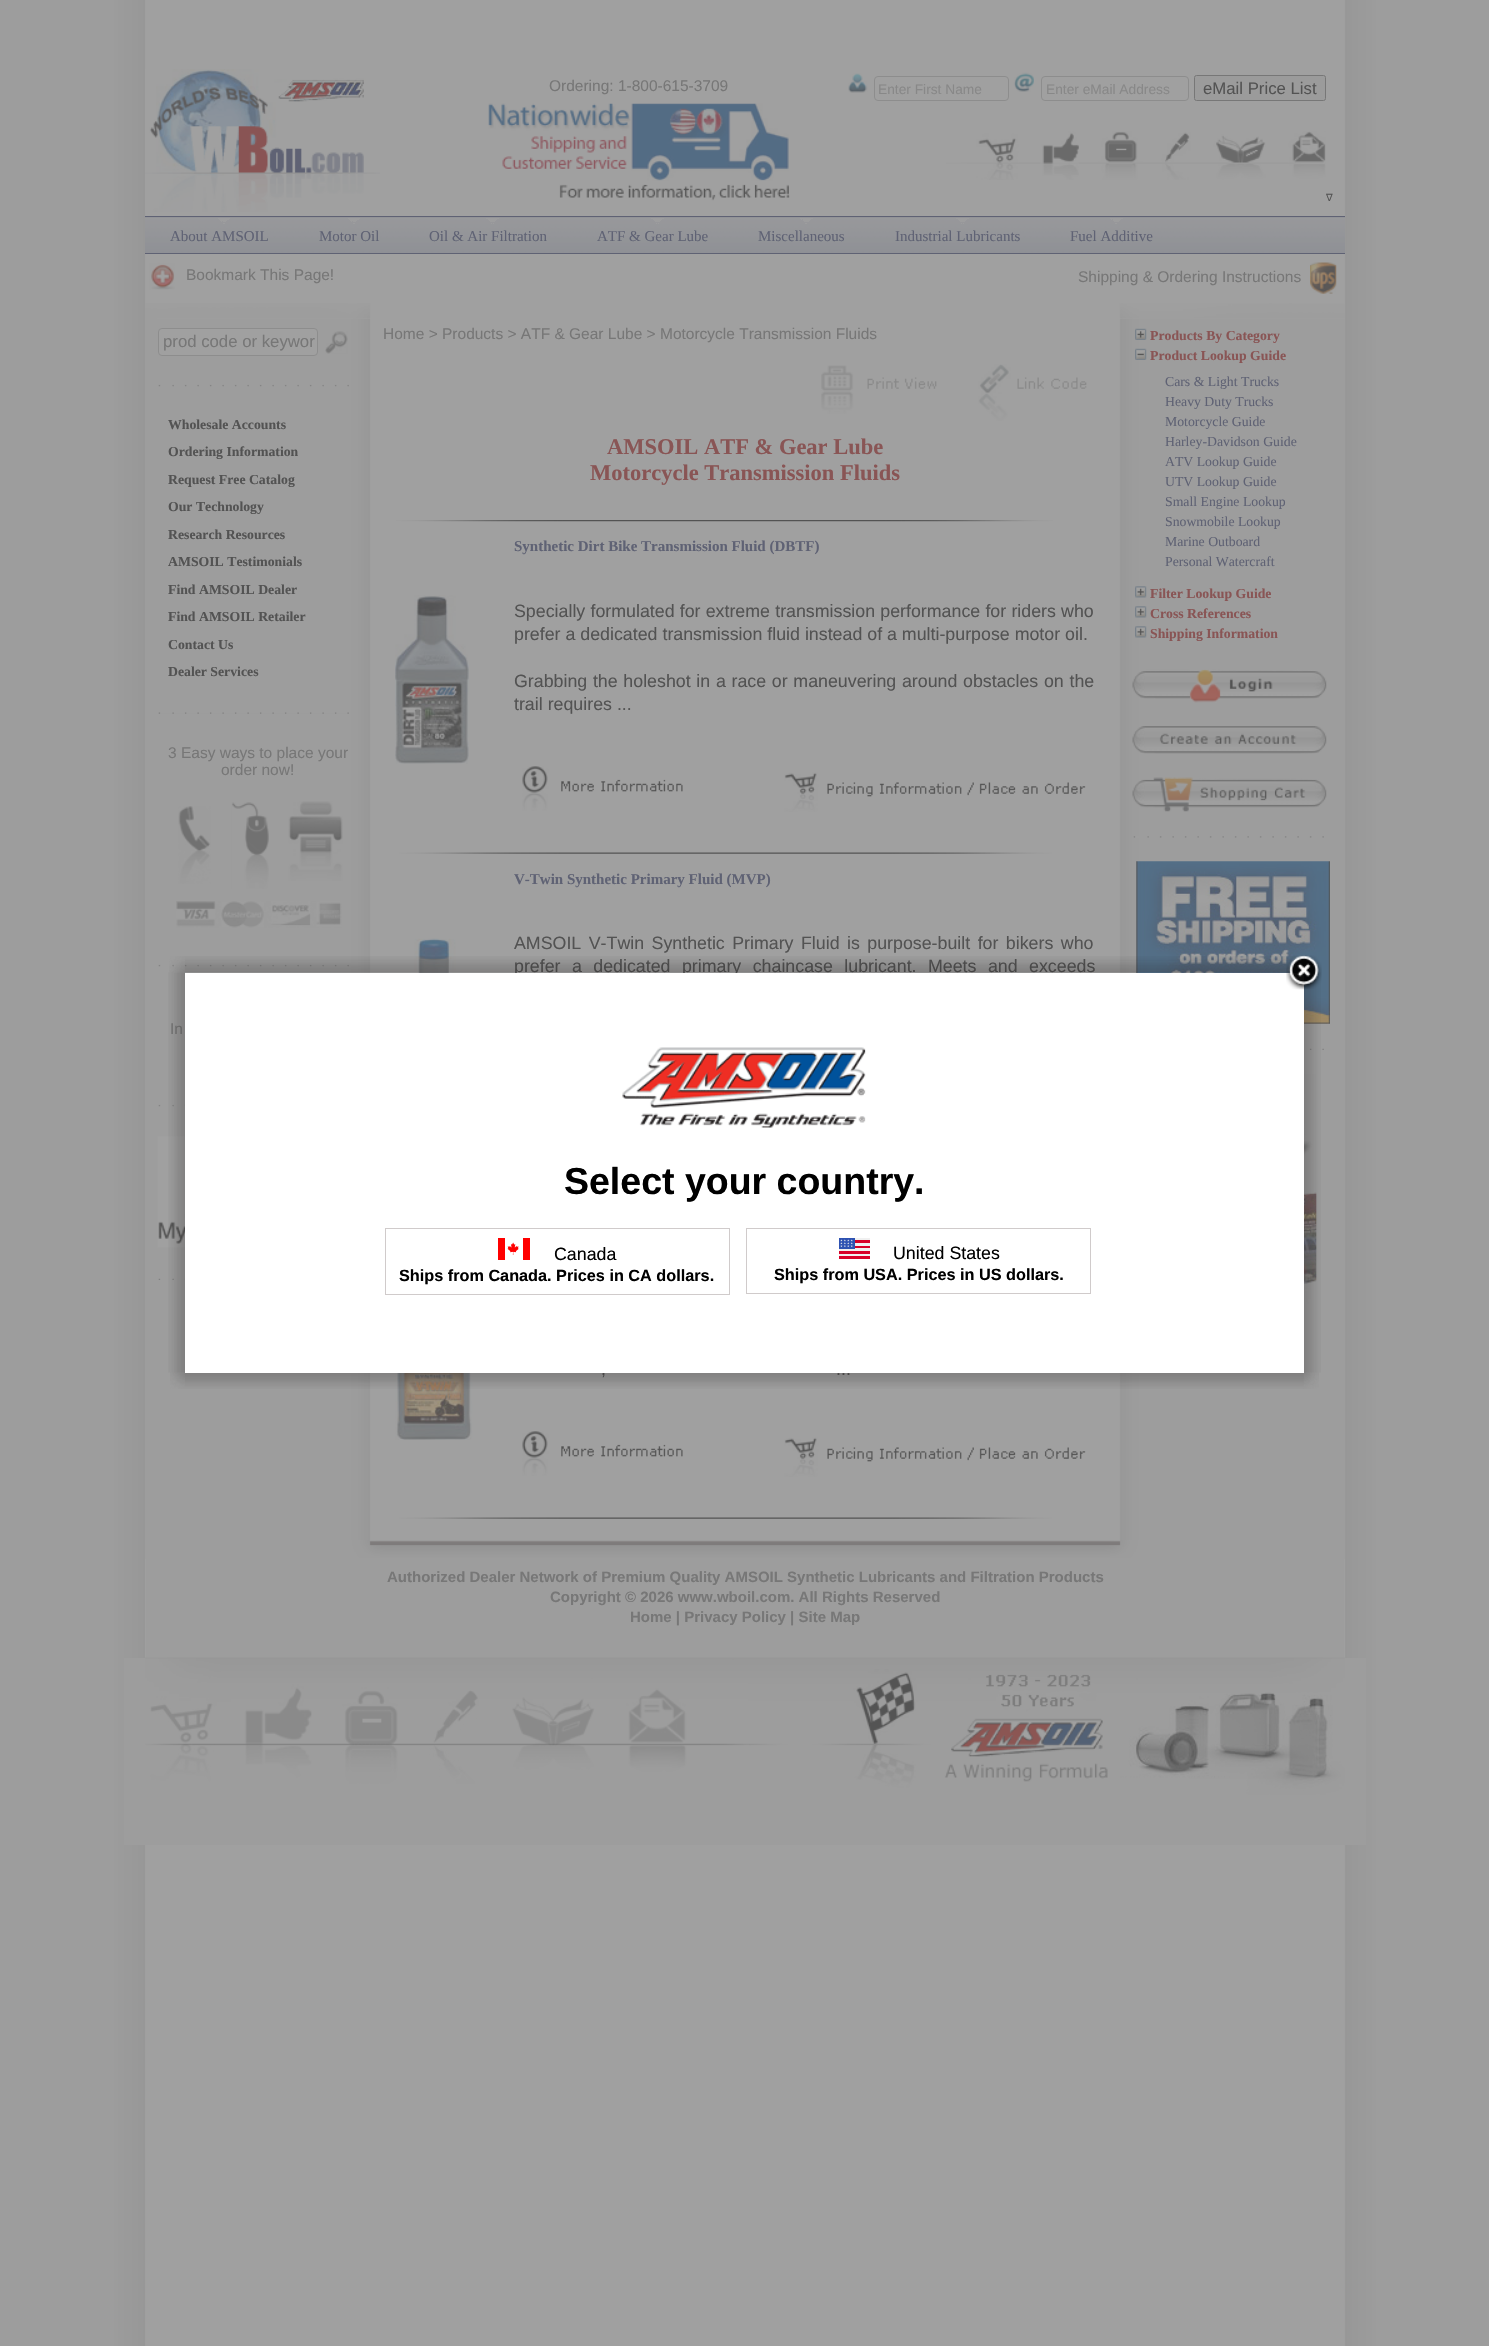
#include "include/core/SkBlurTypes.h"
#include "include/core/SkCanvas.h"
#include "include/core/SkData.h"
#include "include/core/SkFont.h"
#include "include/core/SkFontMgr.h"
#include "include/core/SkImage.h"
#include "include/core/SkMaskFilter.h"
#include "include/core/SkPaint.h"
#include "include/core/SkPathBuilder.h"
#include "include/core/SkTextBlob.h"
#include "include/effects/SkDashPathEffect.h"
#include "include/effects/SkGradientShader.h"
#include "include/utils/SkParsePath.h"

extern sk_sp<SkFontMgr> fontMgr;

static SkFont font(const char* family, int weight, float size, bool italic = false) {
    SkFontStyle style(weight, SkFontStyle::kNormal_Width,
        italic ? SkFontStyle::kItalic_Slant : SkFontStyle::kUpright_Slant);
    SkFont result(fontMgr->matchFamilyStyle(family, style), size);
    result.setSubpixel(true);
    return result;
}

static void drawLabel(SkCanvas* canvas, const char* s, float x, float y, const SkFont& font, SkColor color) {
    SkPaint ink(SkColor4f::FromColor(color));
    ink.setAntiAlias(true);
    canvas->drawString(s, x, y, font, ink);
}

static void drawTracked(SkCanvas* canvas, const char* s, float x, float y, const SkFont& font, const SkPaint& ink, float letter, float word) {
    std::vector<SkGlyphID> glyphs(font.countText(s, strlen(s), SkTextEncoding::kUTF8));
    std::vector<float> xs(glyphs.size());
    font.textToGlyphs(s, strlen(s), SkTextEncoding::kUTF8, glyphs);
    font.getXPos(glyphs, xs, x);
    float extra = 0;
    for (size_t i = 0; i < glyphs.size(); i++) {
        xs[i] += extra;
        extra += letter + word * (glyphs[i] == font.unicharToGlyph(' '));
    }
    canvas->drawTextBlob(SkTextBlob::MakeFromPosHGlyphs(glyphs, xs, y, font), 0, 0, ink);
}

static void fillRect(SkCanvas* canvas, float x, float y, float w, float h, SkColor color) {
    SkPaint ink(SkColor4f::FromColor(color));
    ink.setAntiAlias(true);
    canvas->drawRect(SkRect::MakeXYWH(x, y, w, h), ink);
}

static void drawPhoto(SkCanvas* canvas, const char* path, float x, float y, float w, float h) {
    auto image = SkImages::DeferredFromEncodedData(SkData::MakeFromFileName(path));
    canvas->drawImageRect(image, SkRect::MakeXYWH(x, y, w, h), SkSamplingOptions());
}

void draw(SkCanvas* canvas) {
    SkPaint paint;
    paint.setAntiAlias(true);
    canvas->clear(0xFF9D9D9D);
    drawPhoto(canvas, "assets/img1.png", 114, 0, 1262, 2346);
    drawPhoto(canvas, "assets/img2.png", 145, 69, 235, 143);
    SkFont font1 = font("Liberation Sans", 400, 15.5f);
    drawLabel(canvas, "Ordering: 1-800-615-3709", 549, 91, font1, 0xFF777777);
    drawPhoto(canvas, "assets/img3.png", 488, 103, 302, 98);
    drawPhoto(canvas, "assets/img4.png", 848, 73, 20, 20);
    paint.setStroke(true);
    paint.setStrokeWidth(1);
    paint.setColor(0xFF8D8D8D);
    canvas->drawRoundRect(SkRect::MakeXYWH(874.5f, 76.5f, 134, 24), 3.5f, 3.5f, paint);
    SkFont font2 = font("Liberation Sans", 400, 13.75f);
    drawLabel(canvas, "Enter First Name", 878, 94, font2, 0xFF888888);
    drawPhoto(canvas, "assets/img5.png", 1013, 72, 21, 20);
    canvas->drawRoundRect(SkRect::MakeXYWH(1041.5f, 76.5f, 147, 24), 3.5f, 3.5f, paint);
    drawLabel(canvas, "Enter eMail Address", 1046, 94, font2, 0xFF888888);
    paint.setStroke(false);
    paint.setColor(0xFF9B9B9B);
    canvas->drawRoundRect(SkRect::MakeXYWH(1194.5f, 75.5f, 131, 25), 2, 2, paint);
    paint.setStroke(true);
    paint.setColor(0xFF777777);
    canvas->drawRoundRect(SkRect::MakeXYWH(1194.5f, 75.5f, 131, 25), 2, 2, paint);
    SkFont font3 = font("Liberation Sans", 400, 16.75f);
    drawLabel(canvas, "eMail Price List", 1203, 94, font3, 0xFF535353);
    drawPhoto(canvas, "assets/img6.png", 946, 131, 380, 49);
    SkFont font4 = font("DejaVu Sans", 400, 10);
    drawLabel(canvas, "∇", 1326, 201, font4, 0xFF535353);
    drawPhoto(canvas, "assets/img7.png", 145, 217, 1200, 36);
    fillRect(canvas, 145, 216, 1200, 1, 0xFF5F6274);
    fillRect(canvas, 145, 253, 1200, 1, 0xFF5F6274);
    fillRect(canvas, 218, 218, 12, 1, 0xFF9D9D9E);
    fillRect(canvas, 219, 219, 10, 1, 0xFF9D9D9E);
    fillRect(canvas, 220, 220, 7, 1, 0xFF9D9D9E);
    fillRect(canvas, 223, 221, 3, 1, 0xFF9D9D9E);
    fillRect(canvas, 221, 221, 1, 1, 0xFF9D9D9E);
    fillRect(canvas, 223, 223, 2, 1, 0xFF9D9D9E);
    SkFont font5 = font("Liberation Serif", 400, 15);
    drawLabel(canvas, "About AMSOIL", 170, 241, font5, 0xFF5F6274);
    fillRect(canvas, 348, 218, 12, 1, 0xFF9D9D9E);
    fillRect(canvas, 349, 219, 10, 1, 0xFF9D9D9E);
    fillRect(canvas, 350, 220, 7, 1, 0xFF9D9D9E);
    fillRect(canvas, 353, 221, 3, 1, 0xFF9D9D9E);
    fillRect(canvas, 351, 221, 1, 1, 0xFF9D9D9E);
    fillRect(canvas, 353, 223, 2, 1, 0xFF9D9D9E);
    drawLabel(canvas, "Motor Oil", 319, 241, font5, 0xFF5F6274);
    fillRect(canvas, 486, 218, 13, 1, 0xFF9D9D9E);
    fillRect(canvas, 488, 219, 9, 1, 0xFF9D9D9E);
    fillRect(canvas, 489, 220, 7, 1, 0xFF9D9D9E);
    fillRect(canvas, 490, 221, 5, 1, 0xFF9D9D9E);
    fillRect(canvas, 493, 223, 1, 1, 0xFF9D9D9E);
    fillRect(canvas, 491, 223, 1, 1, 0xFF9D9D9E);
    drawLabel(canvas, "Oil & Air Filtration", 429, 241, font5, 0xFF5F6274);
    fillRect(canvas, 651, 218, 13, 1, 0xFF9D9D9E);
    fillRect(canvas, 653, 219, 9, 1, 0xFF9D9D9E);
    fillRect(canvas, 654, 220, 7, 1, 0xFF9D9D9E);
    fillRect(canvas, 655, 221, 5, 1, 0xFF9D9D9E);
    fillRect(canvas, 658, 223, 1, 1, 0xFF9D9D9E);
    fillRect(canvas, 656, 223, 1, 1, 0xFF9D9D9E);
    drawLabel(canvas, "ATF & Gear Lube", 597, 241, font5, 0xFF5F6274);
    fillRect(canvas, 800, 218, 13, 1, 0xFF9D9D9E);
    fillRect(canvas, 803, 219, 8, 1, 0xFF9D9D9E);
    fillRect(canvas, 801, 219, 1, 1, 0xFF9D9D9E);
    fillRect(canvas, 803, 220, 7, 1, 0xFF9D9D9E);
    fillRect(canvas, 804, 221, 5, 1, 0xFF9D9D9E);
    fillRect(canvas, 805, 223, 2, 1, 0xFF9D9D9E);
    drawLabel(canvas, "Miscellaneous", 758, 241, font5, 0xFF5F6274);
    fillRect(canvas, 956, 218, 13, 1, 0xFF9D9D9E);
    fillRect(canvas, 958, 219, 9, 1, 0xFF9D9D9E);
    fillRect(canvas, 959, 220, 7, 1, 0xFF9D9D9E);
    fillRect(canvas, 960, 221, 5, 1, 0xFF9D9D9E);
    fillRect(canvas, 963, 223, 1, 1, 0xFF9D9D9E);
    fillRect(canvas, 961, 223, 1, 1, 0xFF9D9D9E);
    drawLabel(canvas, "Industrial Lubricants", 895, 241, font5, 0xFF5F6274);
    fillRect(canvas, 1110, 218, 13, 1, 0xFF9D9D9E);
    fillRect(canvas, 1113, 219, 8, 1, 0xFF9D9D9E);
    fillRect(canvas, 1111, 219, 1, 1, 0xFF9D9D9E);
    fillRect(canvas, 1113, 220, 7, 1, 0xFF9D9D9E);
    fillRect(canvas, 1114, 221, 5, 1, 0xFF9D9D9E);
    fillRect(canvas, 1115, 223, 2, 1, 0xFF9D9D9E);
    drawLabel(canvas, "Fuel Additive", 1070, 241, font5, 0xFF5F6274);
    drawPhoto(canvas, "assets/img8.png", 149, 262, 26, 28);
    drawLabel(canvas, "Bookmark This Page!", 186, 280, font1, 0xFF777777);
    drawLabel(canvas, "Shipping & Ordering Instructions", 1078, 282, font1, 0xFF777777);
    drawPhoto(canvas, "assets/img9.png", 1310, 262, 27, 32);
    drawPhoto(canvas, "assets/img10.png", 145, 303, 1200, 16);
    drawPhoto(canvas, "assets/img11.png", 145, 319, 1200, 1221);
    paint.setStroke(false);
    paint.setColor(0xFFA0A0A0);
    canvas->drawRoundRect(SkRect::MakeXYWH(158.5f, 328.5f, 159, 27), 3.5f, 3.5f, paint);
    paint.setStroke(true);
    paint.setColor(0xFF8D8D8D);
    canvas->drawRoundRect(SkRect::MakeXYWH(158.5f, 328.5f, 159, 27), 3.5f, 3.5f, paint);
    drawLabel(canvas, "prod code or keywor", 163, 347, font3, 0xFF777777);
    drawPhoto(canvas, "assets/img12.png", 325, 331, 23, 23);
    drawPhoto(canvas, "assets/img13.png", 158, 384, 191, 3);
    SkFont font6 = font("Liberation Serif", 700, 13.75f);
    drawLabel(canvas, "Wholesale Accounts", 168, 429, font6, 0xFF535353);
    drawLabel(canvas, "Ordering Information", 168, 456, font6, 0xFF535353);
    drawLabel(canvas, "Request Free Catalog", 168, 484, font6, 0xFF535353);
    drawLabel(canvas, "Our Technology", 168, 511, font6, 0xFF535353);
    drawLabel(canvas, "Research Resources", 168, 539, font6, 0xFF535353);
    drawLabel(canvas, "AMSOIL Testimonials", 168, 566, font6, 0xFF535353);
    drawLabel(canvas, "Find AMSOIL Dealer", 168, 594, font6, 0xFF535353);
    drawLabel(canvas, "Find AMSOIL Retailer", 168, 621, font6, 0xFF535353);
    drawLabel(canvas, "Contact Us", 168, 649, font6, 0xFF535353);
    drawLabel(canvas, "Dealer Services", 168, 676, font6, 0xFF535353);
    drawPhoto(canvas, "assets/img14.png", 158, 712, 191, 2);
    drawLabel(canvas, "3 Easy ways to place your", 168, 758, font1, 0xFF777777);
    drawLabel(canvas, "order now!", 221, 775, font1, 0xFF777777);
    drawPhoto(canvas, "assets/img15.png", 178, 806, 33, 78);
    drawPhoto(canvas, "assets/img16.png", 231, 802, 38, 87);
    drawPhoto(canvas, "assets/img17.png", 288, 801, 55, 80);
    drawPhoto(canvas, "assets/img18.png", 176, 901, 166, 27);
    drawPhoto(canvas, "assets/img13.png", 158, 964, 191, 3);
    drawLabel(canvas, "In", 170, 1034, font1, 0xFF777777);
    drawPhoto(canvas, "assets/img19.png", 158, 1104, 27, 3);
    drawPhoto(canvas, "assets/img20.png", 157, 1136, 28, 112);
    drawPhoto(canvas, "assets/img21.png", 158, 1278, 27, 2);
    drawLabel(canvas, "Home > Products > ATF & Gear Lube > Motorcycle Transmission Fluids", 383, 339, font1, 0xFF777777);
    drawPhoto(canvas, "assets/img22.png", 821, 365, 116, 49);
    drawPhoto(canvas, "assets/img23.png", 978, 364, 109, 57);
    SkFont font7 = font("Liberation Serif", 700, 22.5f);
    drawLabel(canvas, "AMSOIL ATF & Gear Lube", 607, 454, font7, 0xFF895555);
    drawLabel(canvas, "Motorcycle Transmission Fluids", 590, 480, font7, 0xFF895555);
    drawPhoto(canvas, "assets/img24.png", 396, 520, 657, 2);
    SkFont font8 = font("Liberation Serif", 700, 15);
    drawLabel(canvas, "Synthetic Dirt Bike Transmission Fluid (DBTF)", 514, 551, font8, 0xFF5F6274);
    drawPhoto(canvas, "assets/img25.png", 395, 595, 74, 169);
    SkFont font9 = font("Liberation Sans", 400, 17.8f);
    paint.setStroke(false);
    paint.setColor(0xFF535353);
    drawTracked(canvas, "Specially formulated for extreme transmission performance for riders who", 514, 617, font9, paint, 0, 0.25f);
    drawLabel(canvas, "prefer a dedicated transmission fluid instead of a multi-purpose motor oil.", 514, 640, font9, 0xFF535353);
    drawTracked(canvas, "Grabbing the holeshot in a race or maneuvering around obstacles on the", 514, 687, font9, paint, 0, 0.75f);
    drawLabel(canvas, "trail requires ...", 514, 710, font9, 0xFF535353);
    drawPhoto(canvas, "assets/img26.png", 522, 766, 161, 45);
    drawPhoto(canvas, "assets/img27.png", 784, 772, 302, 40);
    drawPhoto(canvas, "assets/img28.png", 399, 852, 653, 2);
    drawLabel(canvas, "V-Twin Synthetic Primary Fluid (MVP)", 514, 884, font8, 0xFF5F6274);
    drawPhoto(canvas, "assets/img29.png", 395, 938, 78, 35);
    drawTracked(canvas, "AMSOIL V-Twin Synthetic Primary Fluid is purpose-built for bikers who", 514, 949, font9, paint, 0, 2.5f);
    drawTracked(canvas, "prefer a dedicated primary chaincase lubricant. Meets and exceeds", 514, 972, font9, paint, 0, 6.5f);
    drawPhoto(canvas, "assets/img30.png", 395, 1373, 78, 67);
    drawLabel(canvas, ",", 601, 1375, font9, 0xFF535353);
    drawLabel(canvas, "...", 836, 1375, font9, 0xFF535353);
    drawPhoto(canvas, "assets/img26.png", 522, 1431, 161, 45);
    drawPhoto(canvas, "assets/img27.png", 784, 1437, 302, 40);
    drawPhoto(canvas, "assets/img28.png", 399, 1517, 653, 2);
    drawPhoto(canvas, "assets/img31.png", 1135, 328, 12, 12);
    drawLabel(canvas, "Products By Category", 1150, 340, font6, 0xFF895555);
    drawPhoto(canvas, "assets/img32.png", 1135, 348, 12, 12);
    drawLabel(canvas, "Product Lookup Guide", 1150, 360, font6, 0xFF895555);
    SkFont font10 = font("Liberation Serif", 400, 13.75f);
    drawLabel(canvas, "Cars & Light Trucks", 1165, 386, font10, 0xFF5F6274);
    drawLabel(canvas, "Heavy Duty Trucks", 1165, 406, font10, 0xFF5F6274);
    drawLabel(canvas, "Motorcycle Guide", 1165, 426, font10, 0xFF5F6274);
    drawLabel(canvas, "Harley-Davidson Guide", 1165, 446, font10, 0xFF5F6274);
    drawLabel(canvas, "ATV Lookup Guide", 1165, 466, font10, 0xFF5F6274);
    drawLabel(canvas, "UTV Lookup Guide", 1165, 486, font10, 0xFF5F6274);
    drawLabel(canvas, "Small Engine Lookup", 1165, 506, font10, 0xFF5F6274);
    drawLabel(canvas, "Snowmobile Lookup", 1165, 526, font10, 0xFF5F6274);
    drawLabel(canvas, "Marine Outboard", 1165, 546, font10, 0xFF5F6274);
    drawLabel(canvas, "Personal Watercraft", 1165, 566, font10, 0xFF5F6274);
    drawPhoto(canvas, "assets/img33.png", 1135, 586, 12, 12);
    drawLabel(canvas, "Filter Lookup Guide", 1150, 598, font6, 0xFF895555);
    drawPhoto(canvas, "assets/img34.png", 1135, 606, 12, 12);
    drawLabel(canvas, "Cross References", 1150, 618, font6, 0xFF895555);
    drawPhoto(canvas, "assets/img34.png", 1135, 626, 12, 12);
    drawLabel(canvas, "Shipping Information", 1150, 638, font6, 0xFF895555);
    drawPhoto(canvas, "assets/img35.png", 1132, 669, 195, 34);
    drawPhoto(canvas, "assets/img36.png", 1132, 726, 195, 28);
    drawPhoto(canvas, "assets/img37.png", 1132, 777, 195, 35);
    drawPhoto(canvas, "assets/img38.png", 1133, 836, 191, 2);
    drawPhoto(canvas, "assets/img39.png", 1136, 861, 194, 163);
    drawPhoto(canvas, "assets/img40.png", 1304, 1048, 20, 2);
    drawPhoto(canvas, "assets/img41.png", 1304, 1074, 13, 239);
    drawPhoto(canvas, "assets/img42.png", 145, 1540, 1200, 19);
    fillRect(canvas, 146, 1559, 1198, 99, 0xFF9D9D9D);
    SkFont font11 = font("Liberation Sans", 700, 15);
    drawLabel(canvas, "Authorized Dealer Network of Premium Quality AMSOIL Synthetic Lubricants and Filtration Products", 387, 1582, font11, 0xFF777777);
    drawLabel(canvas, "Copyright © 2026 www.wboil.com. All Rights Reserved", 550, 1602, font11, 0xFF777777);
    drawLabel(canvas, "Home | Privacy Policy | Site Map", 630, 1622, font11, 0xFF777777);
    fillRect(canvas, 198, 986, 1093, 374, 0xFFFFFFFF);
    drawPhoto(canvas, "assets/img52.png", 170, 1372, 15, 17);
    drawPhoto(canvas, "assets/img47.png", 168, 972, 17, 401);
    drawPhoto(canvas, "assets/img43.png", 169, 956, 16, 17);
    drawPhoto(canvas, "assets/img45.png", 185, 956, 1119, 17);
    drawPhoto(canvas, "assets/img46.png", 1303, 956, 16, 17);
    drawPhoto(canvas, "assets/img51.png", 1303, 972, 18, 401);
    drawPhoto(canvas, "assets/img54.png", 1303, 1372, 16, 17);
    paint.setStroke(true);
    paint.setStrokeWidth(13);
    paint.setColor(0xFFFFFFFF);
    canvas->drawRect(SkRect::MakeXYWH(191.5f, 979.5f, 1106, 387), paint);
    drawPhoto(canvas, "assets/img44.png", 1286, 955, 36, 35);
    drawPhoto(canvas, "assets/img48.png", 622, 1047, 244, 81);
    SkFont font12 = font("Liberation Sans", 700, 37.5f);
    drawLabel(canvas, "Select your country.", 564, 1194, font12, 0xFF000000);
    paint.setStrokeWidth(1);
    paint.setColor(0xFFD0CBCB);
    canvas->drawRect(SkRect::MakeXYWH(385.5f, 1228.5f, 344, 66), paint);
    drawPhoto(canvas, "assets/img49.png", 498, 1238, 32, 22);
    drawLabel(canvas, "Canada", 554, 1260, font9, 0xFF000000);
    SkFont font13 = font("Liberation Sans", 700, 16.25f);
    drawLabel(canvas, "Ships from Canada. Prices in CA dollars.", 399, 1281, font13, 0xFF000000);
    canvas->drawRect(SkRect::MakeXYWH(746.5f, 1228.5f, 344, 65), paint);
    drawPhoto(canvas, "assets/img50.png", 839, 1238, 31, 21);
    drawLabel(canvas, "United States", 893, 1259, font9, 0xFF000000);
    drawLabel(canvas, "Ships from USA. Prices in US dollars.", 774, 1280, font13, 0xFF000000);
    drawPhoto(canvas, "assets/img53.png", 185, 1373, 1119, 16);
    fillRect(canvas, 124, 1658, 1242, 187, 0xFF9D9D9D);
    drawPhoto(canvas, "assets/img55.png", 145, 1657, 1200, 138);
}
